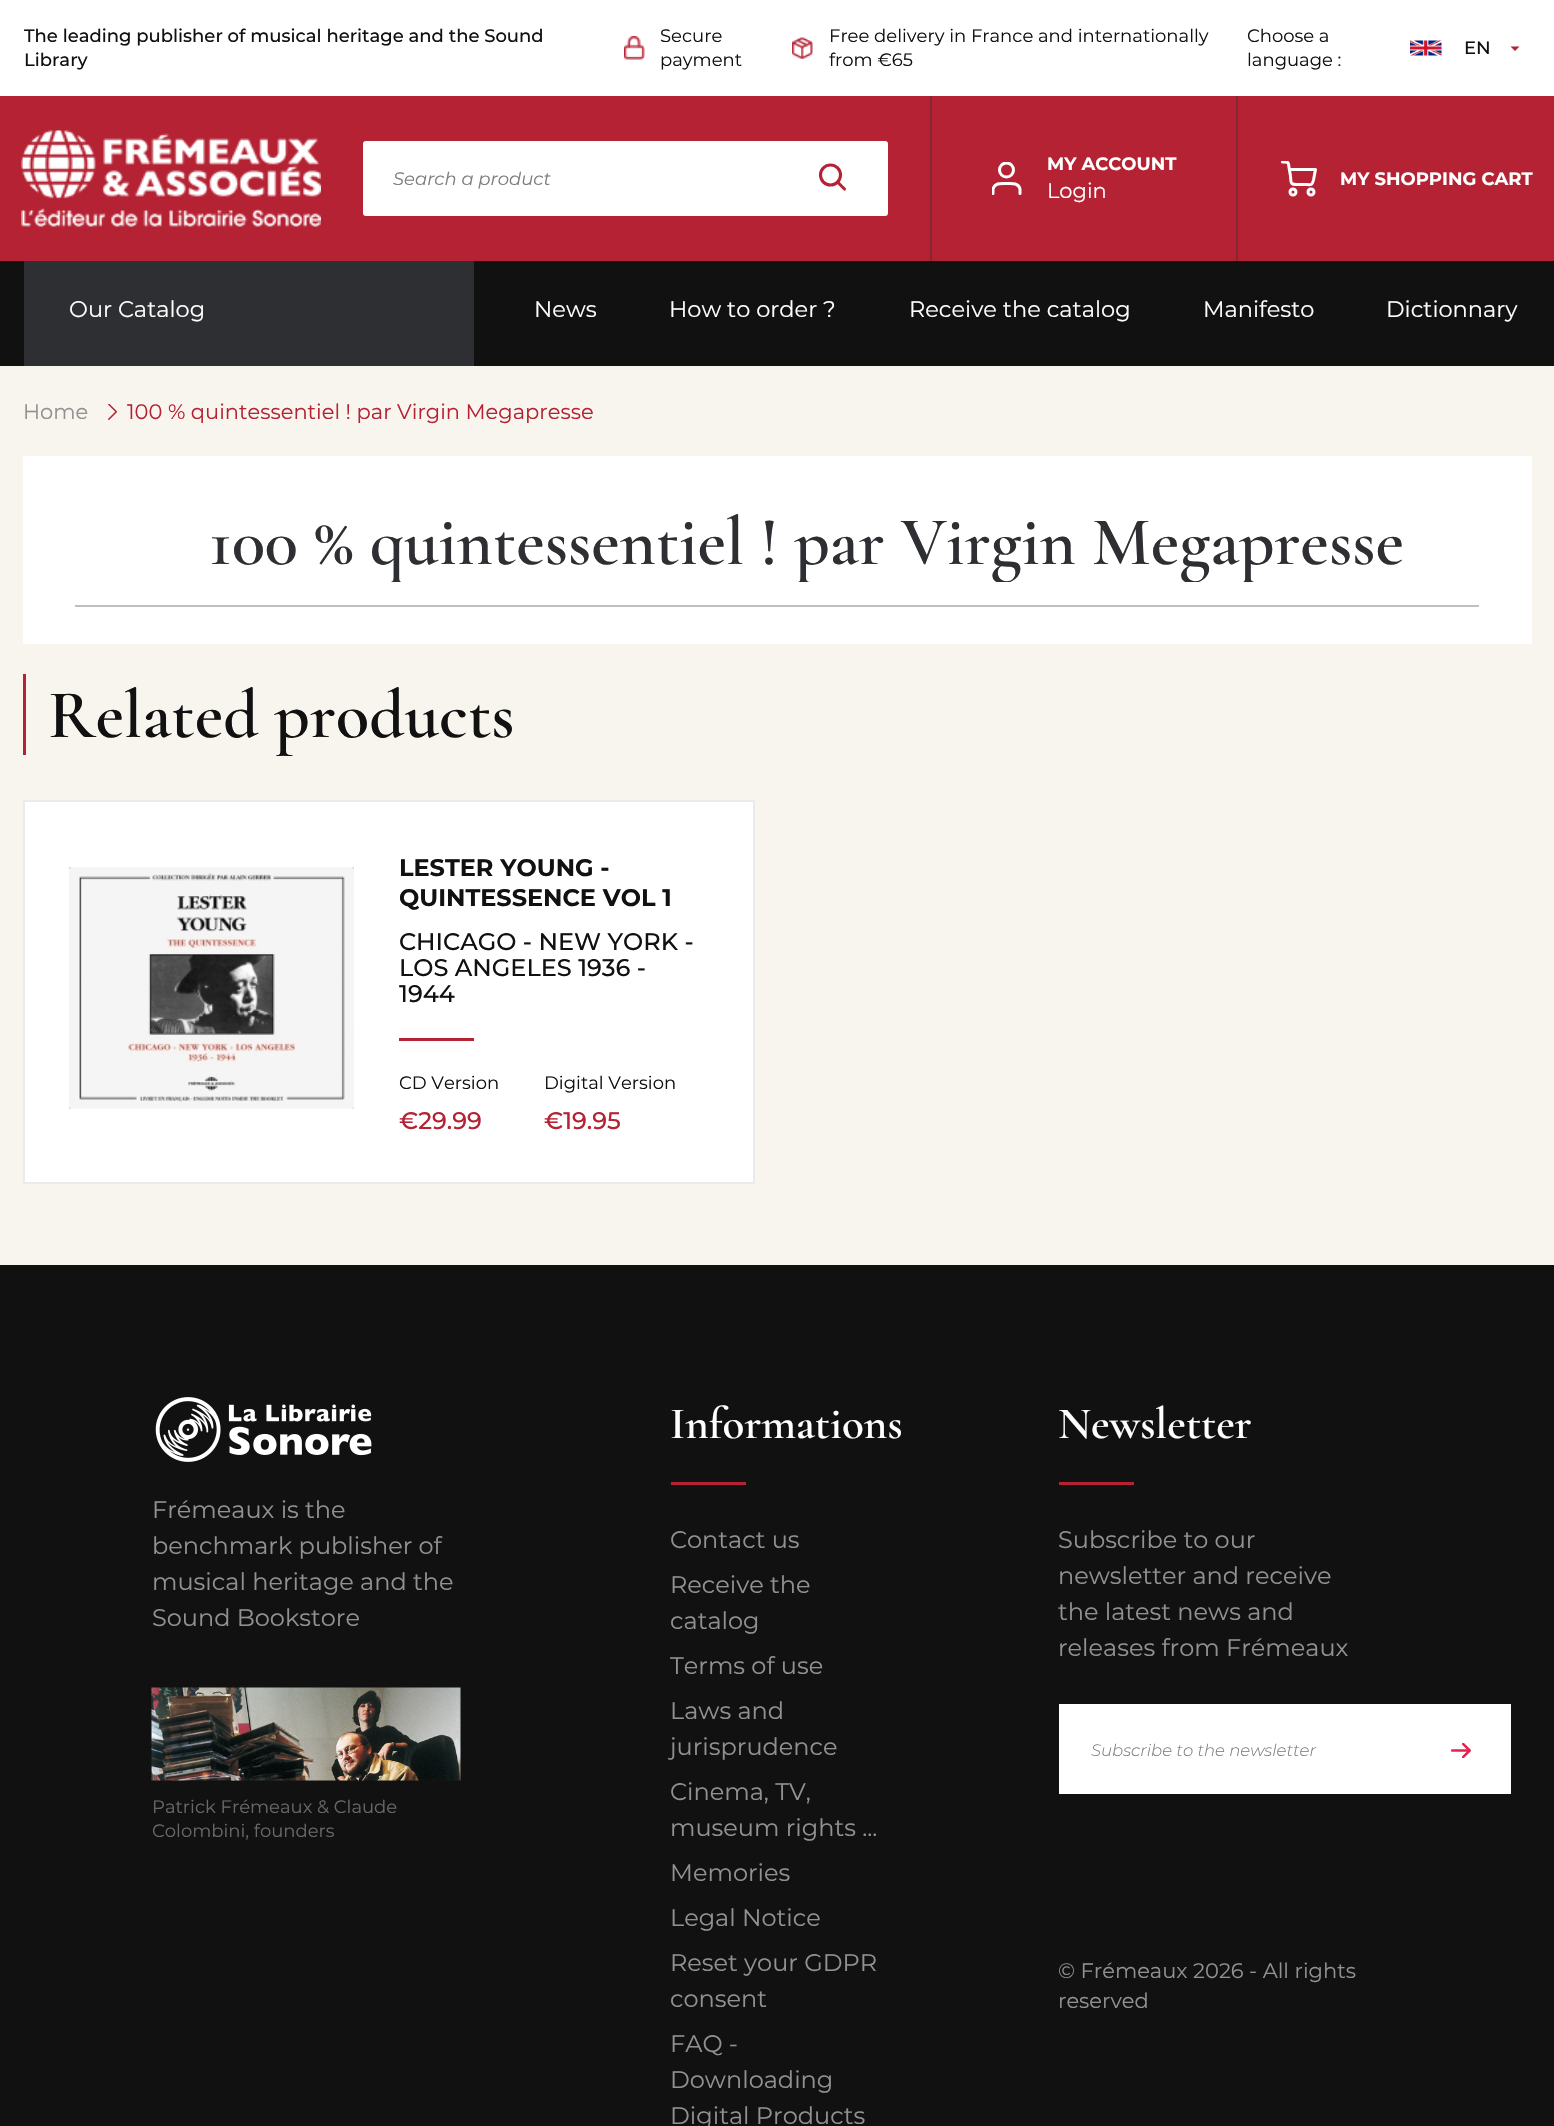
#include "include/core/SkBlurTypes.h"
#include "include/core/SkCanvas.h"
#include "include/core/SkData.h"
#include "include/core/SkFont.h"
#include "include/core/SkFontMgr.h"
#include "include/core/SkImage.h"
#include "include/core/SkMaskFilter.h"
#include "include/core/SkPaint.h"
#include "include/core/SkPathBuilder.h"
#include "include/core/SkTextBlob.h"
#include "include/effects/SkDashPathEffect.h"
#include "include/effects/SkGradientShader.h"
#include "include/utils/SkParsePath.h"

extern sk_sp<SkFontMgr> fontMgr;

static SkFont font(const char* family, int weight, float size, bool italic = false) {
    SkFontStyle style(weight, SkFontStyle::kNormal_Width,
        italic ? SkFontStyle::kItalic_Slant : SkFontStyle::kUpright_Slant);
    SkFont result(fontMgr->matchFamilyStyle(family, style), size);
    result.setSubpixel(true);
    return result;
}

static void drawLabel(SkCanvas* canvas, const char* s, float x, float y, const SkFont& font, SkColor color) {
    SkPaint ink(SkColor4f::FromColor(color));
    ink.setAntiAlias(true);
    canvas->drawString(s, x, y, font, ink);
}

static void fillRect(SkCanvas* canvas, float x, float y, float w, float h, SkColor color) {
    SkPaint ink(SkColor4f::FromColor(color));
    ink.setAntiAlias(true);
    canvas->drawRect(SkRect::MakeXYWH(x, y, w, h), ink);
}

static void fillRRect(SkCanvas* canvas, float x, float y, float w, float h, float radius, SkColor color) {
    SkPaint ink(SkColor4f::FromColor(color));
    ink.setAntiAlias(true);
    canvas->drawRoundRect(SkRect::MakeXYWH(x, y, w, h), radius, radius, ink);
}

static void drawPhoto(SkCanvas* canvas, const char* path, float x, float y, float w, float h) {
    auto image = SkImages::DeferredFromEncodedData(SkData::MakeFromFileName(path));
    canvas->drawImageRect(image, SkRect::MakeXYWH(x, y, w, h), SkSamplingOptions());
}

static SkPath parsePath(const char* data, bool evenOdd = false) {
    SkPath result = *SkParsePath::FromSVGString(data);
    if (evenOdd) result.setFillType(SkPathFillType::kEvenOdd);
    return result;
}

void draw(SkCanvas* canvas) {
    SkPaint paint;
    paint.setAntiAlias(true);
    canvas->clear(0xFFFFFFFF);
    SkFont font1 = font("Montserrat", 500, 18);
    drawLabel(canvas, "The leading publisher of musical heritage and the Sound", 24, 42, font1, 0xFF111111);
    drawLabel(canvas, "Library", 24, 66, font1, 0xFF111111);
    drawPhoto(canvas, "assets/img1.png", 624, 36, 21, 24);
    SkFont font2 = font("Montserrat", 400, 18);
    drawLabel(canvas, "Secure", 660, 42, font2, 0xFF111111);
    drawLabel(canvas, "payment", 660, 66, font2, 0xFF111111);
    drawPhoto(canvas, "assets/img2.png", 792, 37, 21, 22);
    drawLabel(canvas, "Free delivery in France and internationally", 829, 42, font2, 0xFF111111);
    drawLabel(canvas, "from €65", 829, 66, font2, 0xFF111111);
    drawLabel(canvas, "Choose a", 1247, 42, font2, 0xFF111111);
    drawLabel(canvas, "language :", 1247, 66, font2, 0xFF111111);
    drawPhoto(canvas, "assets/img3.png", 1410, 40, 32, 16);
    drawLabel(canvas, "EN", 1464, 54, font1, 0xFF111111);
    paint.setColor(0xFFB42233);
    canvas->drawPath(parsePath("M1510.5 46.5H1519.5L1515 51Z"), paint);
    fillRect(canvas, 0, 96, 1554, 165, 0xFFB42233);
    drawPhoto(canvas, "assets/img4.png", 21, 130, 300, 97);
    fillRRect(canvas, 363, 141, 525, 75, 3, 0xFFFFFFFF);
    SkFont font3 = font("Montserrat", 400, 18, true);
    drawLabel(canvas, "Search a product", 393, 185, font3, 0xFF7E7E7E);
    paint.setStroke(true);
    paint.setStrokeWidth(3.1f);
    canvas->drawCircle(830.5f, 175, 10, paint);
    paint.setStrokeCap(SkPaint::kRound_Cap);
    paint.setStrokeJoin(SkPaint::kRound_Join);
    canvas->drawPath(parsePath("M844.5 189L837.5 182"), paint);
    fillRect(canvas, 1236, 96, 2, 165, 0xFF852733);
    fillRect(canvas, 930, 96, 2, 165, 0xFF852733);
    canvas->save();
    canvas->clipRect(SkRect::MakeXYWH(992, 162, 31, 33));
    paint.setStrokeWidth(3);
    paint.setColor(0xFFFFFFFF);
    canvas->drawPath(parsePath("M1020 193.5V189C1018.5 182.5 1011.5 183.5 1006.5 183.5C1001.5 183.5 994.5 182.5 993 189V193.5"), paint);
    paint.setStrokeCap(SkPaint::kButt_Cap);
    paint.setStrokeJoin(SkPaint::kMiter_Join);
    canvas->drawCircle(1006.5f, 170, 7, paint);
    canvas->restore();
    SkFont font4 = font("Montserrat", 700, 18);
    drawLabel(canvas, "MY ACCOUNT", 1047, 170, font4, 0xFFFFFFFF);
    SkFont font5 = font("Montserrat", 400, 21);
    drawLabel(canvas, "Login", 1047, 198, font5, 0xFFFFFFFF);
    canvas->drawCircle(1293, 192, 3, paint);
    canvas->drawCircle(1311, 192, 3, paint);
    canvas->save();
    canvas->clipRect(SkRect::MakeXYWH(1281, 161, 36, 36));
    paint.setStrokeCap(SkPaint::kRound_Cap);
    paint.setStrokeJoin(SkPaint::kRound_Join);
    canvas->drawPath(parsePath("M1289.5 169.5H1315.5L1313.5 180C1312 186 1310.5 184.5 1304.5 184.5H1297C1290 184.5 1291 182.5 1290.5 176L1289 167.5C1288.5 161.5 1288 162 1282.5 162"), paint);
    canvas->restore();
    drawLabel(canvas, "MY SHOPPING CART", 1340, 185, font4, 0xFFFFFFFF);
    fillRect(canvas, 0, 261, 1554, 105, 0xFF111111);
    fillRect(canvas, 24, 261, 450, 105, 0xFF2D2F32);
    SkFont font6 = font("Montserrat", 400, 22.5f);
    drawLabel(canvas, "Our Catalog", 69, 317, font6, 0xFFFFFFFF);
    drawLabel(canvas, "News", 534, 317, font6, 0xFFFFFFFF);
    drawLabel(canvas, "How to order ?", 669, 317, font6, 0xFFFFFFFF);
    drawLabel(canvas, "Receive the catalog", 909, 317, font6, 0xFFFFFFFF);
    drawLabel(canvas, "Manifesto", 1203, 317, font6, 0xFFFFFFFF);
    drawLabel(canvas, "Dictionnary", 1386, 317, font6, 0xFFFFFFFF);
    fillRect(canvas, 0, 366, 1554, 899, 0xFFF8F4EE);
    drawLabel(canvas, "Home", 23, 419, font5, 0xFF919191);
    drawPhoto(canvas, "assets/img5.png", 108, 404, 9, 16);
    drawLabel(canvas, "100 % quintessentiel ! par Virgin Megapresse", 127, 419, font5, 0xFFB42233);
    fillRect(canvas, 23, 456, 1509, 188, 0xFFFFFFFF);
    canvas->save();
    canvas->clipRect(SkRect::MakeXYWH(75, 501, 1464, 81));
    SkFont font7 = font("Cormorant Garamond", 600, 69);
    drawLabel(canvas, "100 % quintessentiel ! par Virgin Megapresse", 209, 564, font7, 0xFF2D2F32);
    canvas->restore();
    fillRect(canvas, 75, 605, 1404, 2, 0xFFBFBFBF);
    fillRect(canvas, 23, 674, 3, 81, 0xFFB42233);
    drawLabel(canvas, "Related products", 48, 737, font7, 0xFF111111);
    paint.setStroke(false);
    canvas->drawRect(SkRect::MakeXYWH(24, 801, 730, 382), paint);
    paint.setStroke(true);
    paint.setStrokeWidth(2);
    paint.setStrokeCap(SkPaint::kButt_Cap);
    paint.setStrokeJoin(SkPaint::kMiter_Join);
    paint.setColor(0xFFEBEBEB);
    canvas->drawRect(SkRect::MakeXYWH(24, 801, 730, 382), paint);
    drawPhoto(canvas, "assets/img6.png", 69, 867, 285, 242);
    SkFont font8 = font("Montserrat", 700, 24);
    drawLabel(canvas, "LESTER YOUNG -", 399, 876, font8, 0xFF111111);
    drawLabel(canvas, "QUINTESSENCE VOL 1", 399, 906, font8, 0xFF111111);
    SkFont font9 = font("Montserrat", 500, 24);
    drawLabel(canvas, "CHICAGO - NEW YORK -", 399, 950, font9, 0xFF111111);
    drawLabel(canvas, "LOS ANGELES 1936 -", 399, 976, font9, 0xFF111111);
    drawLabel(canvas, "1944", 399, 1002, font9, 0xFF111111);
    fillRect(canvas, 399, 1038, 75, 3, 0xFFB42233);
    drawLabel(canvas, "CD Version", 399, 1089, font2, 0xFF111111);
    drawLabel(canvas, "€29.99", 399, 1129, font9, 0xFFB42233);
    drawLabel(canvas, "Digital Version", 544, 1089, font2, 0xFF111111);
    drawLabel(canvas, "€19.95", 544, 1129, font9, 0xFFB42233);
    fillRect(canvas, 0, 1265, 1554, 861, 0xFF111111);
    drawPhoto(canvas, "assets/img7.png", 155, 1397, 217, 65);
    SkFont font10 = font("Montserrat", 400, 24);
    drawLabel(canvas, "Frémeaux is the", 152, 1518, font10, 0xFF919191);
    drawLabel(canvas, "benchmark publisher of", 152, 1554, font10, 0xFF919191);
    drawLabel(canvas, "musical heritage and the", 152, 1590, font10, 0xFF919191);
    drawLabel(canvas, "Sound Bookstore", 152, 1626, font10, 0xFF919191);
    drawPhoto(canvas, "assets/img8.png", 151, 1687, 310, 94);
    drawLabel(canvas, "Patrick Frémeaux & Claude", 152, 1813, font2, 0xFF686868);
    drawLabel(canvas, "Colombini, founders", 152, 1837, font2, 0xFF686868);
    SkFont font11 = font("Cormorant Garamond", 600, 45);
    drawLabel(canvas, "Informations", 670, 1438, font11, 0xFFFFFFFF);
    fillRect(canvas, 671, 1482, 75, 3, 0xFFB42233);
    drawLabel(canvas, "Contact us", 670, 1548, font10, 0xFF919191);
    drawLabel(canvas, "Receive the", 670, 1593, font10, 0xFF919191);
    drawLabel(canvas, "catalog", 670, 1629, font10, 0xFF919191);
    drawLabel(canvas, "Terms of use", 670, 1674, font10, 0xFF919191);
    drawLabel(canvas, "Laws and", 670, 1719, font10, 0xFF919191);
    drawLabel(canvas, "jurisprudence", 670, 1755, font10, 0xFF919191);
    drawLabel(canvas, "Cinema, TV,", 670, 1800, font10, 0xFF919191);
    drawLabel(canvas, "museum rights ...", 670, 1836, font10, 0xFF919191);
    drawLabel(canvas, "Memories", 670, 1881, font10, 0xFF919191);
    drawLabel(canvas, "Legal Notice", 670, 1926, font10, 0xFF919191);
    drawLabel(canvas, "Reset your GDPR", 670, 1971, font10, 0xFF919191);
    drawLabel(canvas, "consent", 670, 2007, font10, 0xFF919191);
    drawLabel(canvas, "FAQ -", 670, 2052, font10, 0xFF919191);
    drawLabel(canvas, "Downloading", 670, 2088, font10, 0xFF919191);
    drawLabel(canvas, "Digital Products", 670, 2124, font10, 0xFF919191);
    drawLabel(canvas, "Newsletter", 1058, 1438, font11, 0xFFFFFFFF);
    fillRect(canvas, 1059, 1482, 75, 3, 0xFFB42233);
    drawLabel(canvas, "Subscribe to our", 1058, 1548, font10, 0xFF919191);
    drawLabel(canvas, "newsletter and receive", 1058, 1584, font10, 0xFF919191);
    drawLabel(canvas, "the latest news and", 1058, 1620, font10, 0xFF919191);
    drawLabel(canvas, "releases from Frémeaux", 1058, 1656, font10, 0xFF919191);
    fillRect(canvas, 1059, 1704, 452, 90, 0xFFFFFFFF);
    SkFont font12 = font("Montserrat", 300, 16.5f, true);
    drawLabel(canvas, "Subscribe to the newsletter", 1091, 1756, font12, 0xFF7E7E7E);
    drawPhoto(canvas, "assets/img9.png", 1451, 1743, 20, 15);
    drawLabel(canvas, "© Frémeaux 2026 - All rights", 1058, 1978, font5, 0xFF919191);
    drawLabel(canvas, "reserved", 1058, 2008, font5, 0xFF919191);
}
